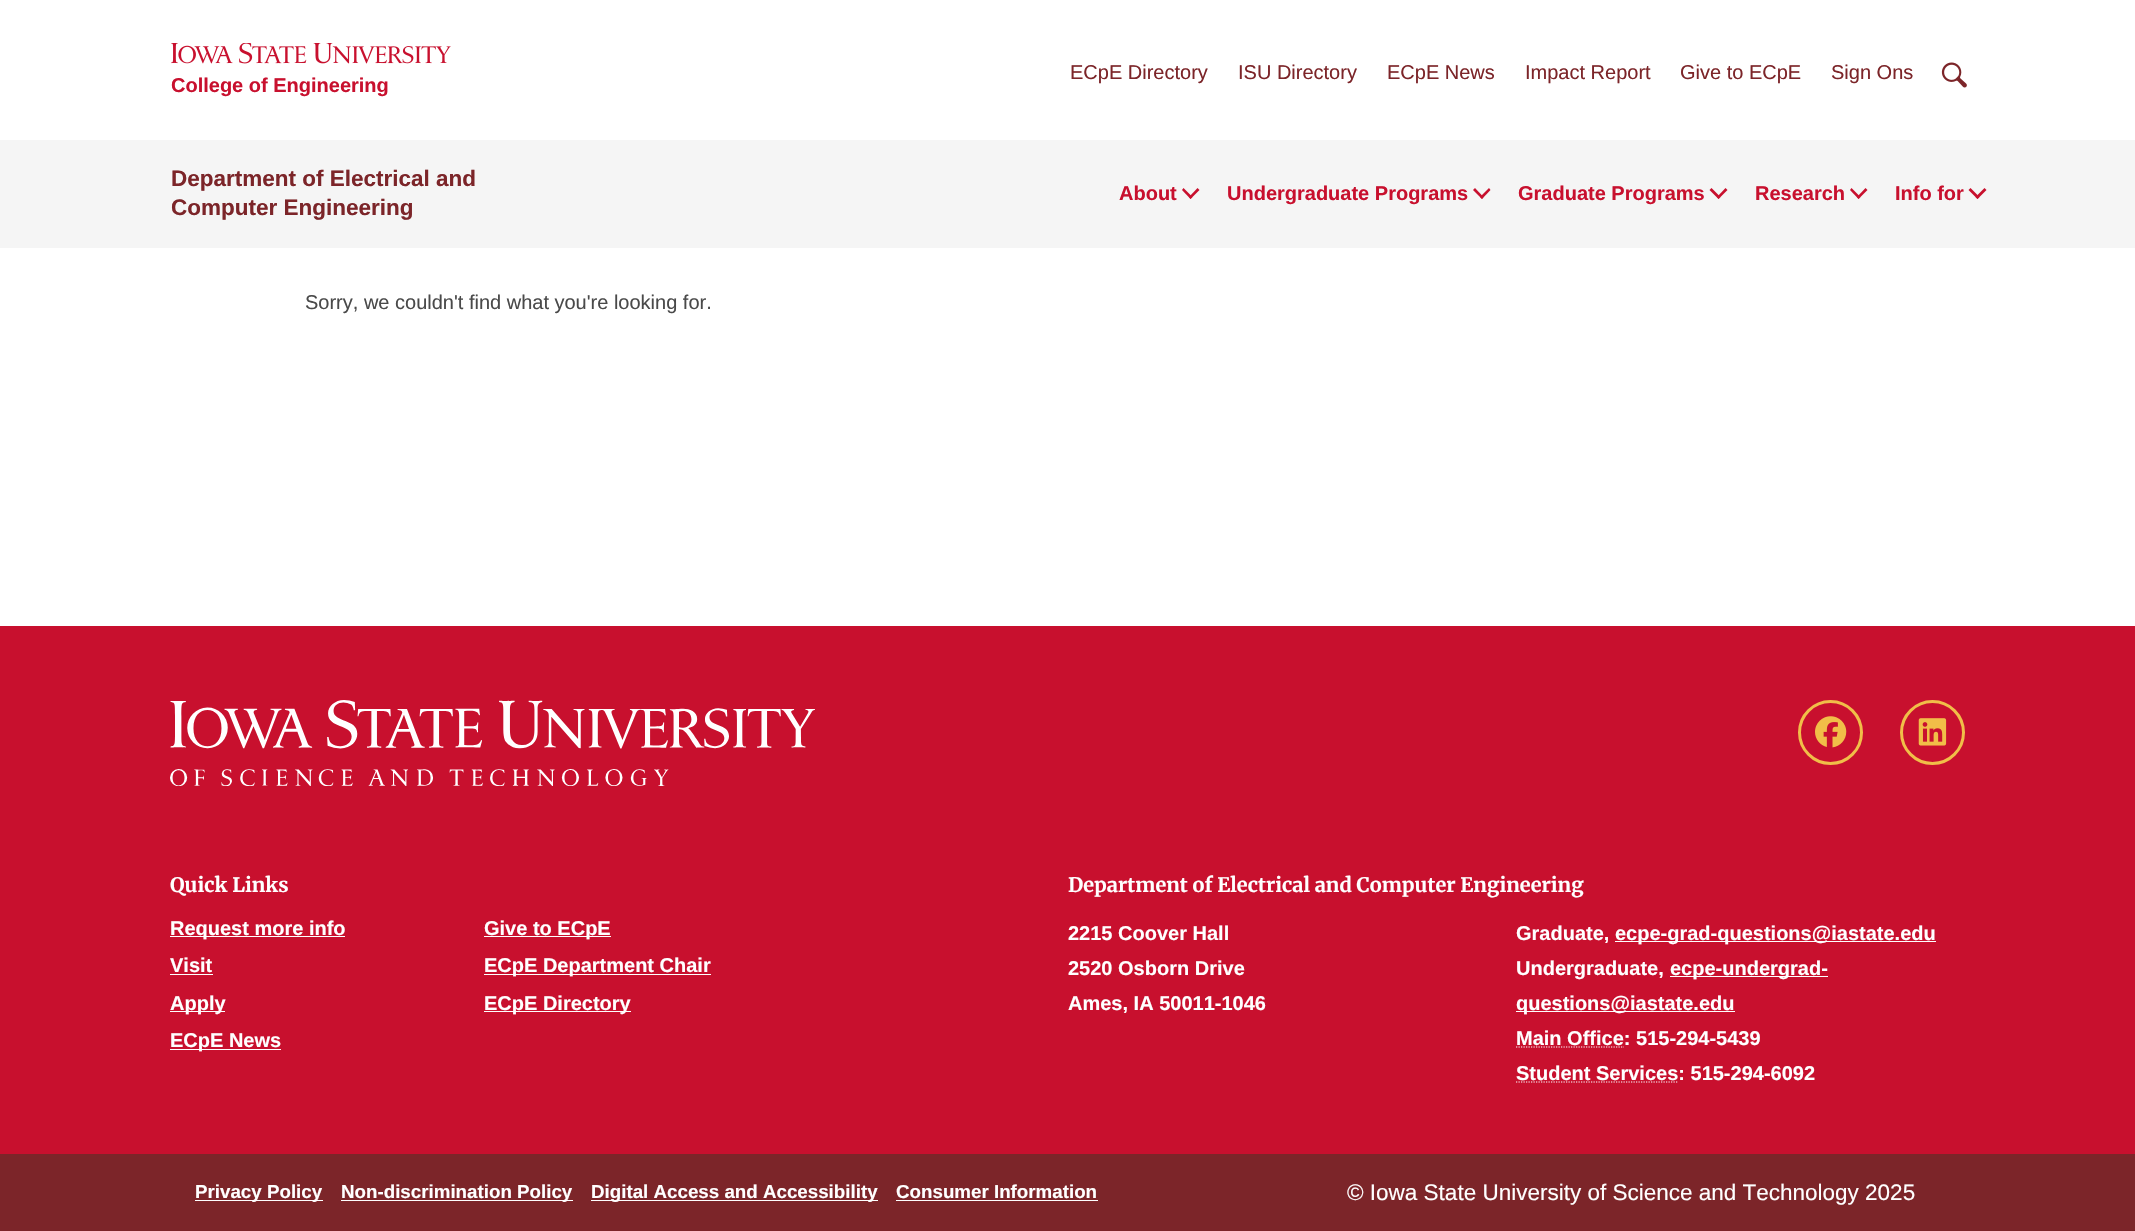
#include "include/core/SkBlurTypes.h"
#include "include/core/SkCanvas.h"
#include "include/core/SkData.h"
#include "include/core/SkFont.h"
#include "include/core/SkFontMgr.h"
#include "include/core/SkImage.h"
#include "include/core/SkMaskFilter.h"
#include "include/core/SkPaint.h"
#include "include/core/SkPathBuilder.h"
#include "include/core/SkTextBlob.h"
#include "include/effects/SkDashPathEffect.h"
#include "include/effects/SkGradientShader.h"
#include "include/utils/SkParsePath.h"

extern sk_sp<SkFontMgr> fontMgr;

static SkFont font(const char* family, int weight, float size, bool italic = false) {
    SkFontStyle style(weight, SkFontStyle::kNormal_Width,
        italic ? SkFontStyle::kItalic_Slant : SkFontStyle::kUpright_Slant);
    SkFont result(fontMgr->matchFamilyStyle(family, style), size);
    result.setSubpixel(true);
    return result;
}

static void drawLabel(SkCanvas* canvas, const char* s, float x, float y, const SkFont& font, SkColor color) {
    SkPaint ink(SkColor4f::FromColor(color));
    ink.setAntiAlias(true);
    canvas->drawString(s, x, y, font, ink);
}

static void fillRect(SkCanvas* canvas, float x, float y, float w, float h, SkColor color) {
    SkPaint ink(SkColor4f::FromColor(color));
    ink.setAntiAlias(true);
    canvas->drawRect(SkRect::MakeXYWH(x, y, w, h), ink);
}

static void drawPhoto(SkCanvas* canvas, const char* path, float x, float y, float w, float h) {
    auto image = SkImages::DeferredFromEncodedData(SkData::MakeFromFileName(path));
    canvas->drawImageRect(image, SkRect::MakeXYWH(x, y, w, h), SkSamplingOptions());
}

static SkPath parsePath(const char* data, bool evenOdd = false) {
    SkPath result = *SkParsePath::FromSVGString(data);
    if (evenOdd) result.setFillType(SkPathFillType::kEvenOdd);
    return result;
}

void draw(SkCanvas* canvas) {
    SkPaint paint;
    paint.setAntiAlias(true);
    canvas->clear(0xFFFFFFFF);
    SkFont font1 = font("Liberation Sans", 400, 20);
    drawLabel(canvas, "ECpE Directory", 1070, 79, font1, 0xFF7C2529);
    drawLabel(canvas, "ISU Directory", 1238, 79, font1, 0xFF7C2529);
    drawLabel(canvas, "ECpE News", 1387, 79, font1, 0xFF7C2529);
    drawLabel(canvas, "Impact Report", 1525, 79, font1, 0xFF7C2529);
    drawLabel(canvas, "Give to ECpE", 1680, 79, font1, 0xFF7C2529);
    drawLabel(canvas, "Sign Ons", 1831, 79, font1, 0xFF7C2529);
    drawPhoto(canvas, "assets/img1.png", 1941, 62, 26, 26);
    drawPhoto(canvas, "assets/img2.png", 171, 43, 280, 21);
    SkFont font2 = font("Liberation Sans", 700, 20);
    drawLabel(canvas, "College of Engineering", 171, 92, font2, 0xFFC8102E);
    fillRect(canvas, 0, 140, 2135, 108, 0xFFF5F5F5);
    SkFont font3 = font("Liberation Sans", 700, 22.5f);
    drawLabel(canvas, "Department of Electrical and", 171, 186, font3, 0xFF7C2529);
    drawLabel(canvas, "Computer Engineering", 171, 215, font3, 0xFF7C2529);
    drawLabel(canvas, "About", 1119, 200, font2, 0xFFC8102E);
    paint.setColor(0xFFC8102E);
    canvas->drawPath(parsePath("M1197.5 188L1199.5 190L1190.5 199L1189 197Z"), paint);
    canvas->drawPath(parsePath("M1183.5 188L1192.5 197L1190.5 199L1182 190Z"), paint);
    drawLabel(canvas, "Undergraduate Programs", 1227, 200, font2, 0xFFC8102E);
    canvas->drawPath(parsePath("M1489 188L1490.5 190L1482 199L1480 197Z"), paint);
    canvas->drawPath(parsePath("M1475 188L1483.5 197L1482 199L1473 190Z"), paint);
    drawLabel(canvas, "Graduate Programs", 1518, 200, font2, 0xFFC8102E);
    canvas->drawPath(parsePath("M1725.5 188L1727.5 190L1718.5 199L1717 197Z"), paint);
    canvas->drawPath(parsePath("M1711.5 188L1720.5 197L1718.5 199L1709.5 190Z"), paint);
    drawLabel(canvas, "Research", 1755, 200, font2, 0xFFC8102E);
    canvas->drawPath(parsePath("M1865.5 188L1867.5 190L1858.5 199L1857 197Z"), paint);
    canvas->drawPath(parsePath("M1851.5 188L1860.5 197L1858.5 199L1850 190Z"), paint);
    drawLabel(canvas, "Info for", 1895, 200, font2, 0xFFC8102E);
    canvas->drawPath(parsePath("M1984.5 188L1986.5 190L1977.5 199L1975.5 197Z"), paint);
    canvas->drawPath(parsePath("M1970.5 188L1979.5 197L1977.5 199L1968.5 190Z"), paint);
    drawLabel(canvas, "Sorry, we couldn't find what you're looking for.", 305, 309, font1, 0xFF4A4A4A);
    fillRect(canvas, 0, 626, 2135, 528, 0xFFC8102E);
    drawPhoto(canvas, "assets/img3.png", 170, 700, 645, 86);
    paint.setStroke(true);
    paint.setStrokeWidth(3);
    paint.setColor(0xFFF1BE48);
    canvas->drawCircle(1830.5f, 732.5f, 31, paint);
    drawPhoto(canvas, "assets/img4.png", 1815, 716, 32, 32);
    canvas->drawCircle(1932.5f, 732.5f, 31, paint);
    drawPhoto(canvas, "assets/img5.png", 1918, 718, 29, 28);
    SkFont font4 = font("Merriweather", 700, 20);
    drawLabel(canvas, "Quick Links", 170, 892, font4, 0xFFFFFFFF);
    fillRect(canvas, 170, 936, 175, 1, 0xFFFFFFFF);
    drawLabel(canvas, "Request more info", 170, 935, font2, 0xFFFFFFFF);
    fillRect(canvas, 484, 936, 127, 1, 0xFFFFFFFF);
    drawLabel(canvas, "Give to ECpE", 484, 935, font2, 0xFFFFFFFF);
    drawLabel(canvas, "Visit", 170, 972, font2, 0xFFFFFFFF);
    fillRect(canvas, 170, 974, 43, 1, 0xFFFFFFFF);
    fillRect(canvas, 484, 974, 227, 1, 0xFFFFFFFF);
    drawLabel(canvas, "ECpE Department Chair", 484, 972, font2, 0xFFFFFFFF);
    fillRect(canvas, 170, 1011, 55, 1, 0xFFFFFFFF);
    drawLabel(canvas, "Apply", 170, 1010, font2, 0xFFFFFFFF);
    fillRect(canvas, 484, 1011, 147, 1, 0xFFFFFFFF);
    drawLabel(canvas, "ECpE Directory", 484, 1010, font2, 0xFFFFFFFF);
    fillRect(canvas, 170, 1049, 111, 1, 0xFFFFFFFF);
    drawLabel(canvas, "ECpE News", 170, 1047, font2, 0xFFFFFFFF);
    drawLabel(canvas, "Department of Electrical and Computer Engineering", 1068, 892, font4, 0xFFFFFFFF);
    drawLabel(canvas, "2215 Coover Hall", 1068, 940, font2, 0xFFFFFFFF);
    drawLabel(canvas, "2520 Osborn Drive", 1068, 975, font2, 0xFFFFFFFF);
    drawLabel(canvas, "Ames, IA 50011-1046", 1068, 1010, font2, 0xFFFFFFFF);
    drawLabel(canvas, "Graduate,", 1516, 940, font2, 0xFFFFFFFF);
    fillRect(canvas, 1615, 941, 321, 1, 0xFFFFFFFF);
    drawLabel(canvas, "ecpe-grad-questions@iastate.edu", 1615, 940, font2, 0xFFFFFFFF);
    drawLabel(canvas, "Undergraduate,", 1516, 975, font2, 0xFFFFFFFF);
    fillRect(canvas, 1670, 976, 158, 1, 0xFFFFFFFF);
    drawLabel(canvas, "ecpe-undergrad-", 1670, 975, font2, 0xFFFFFFFF);
    fillRect(canvas, 1516, 1011, 219, 1, 0xFFFFFFFF);
    drawLabel(canvas, "questions@iastate.edu", 1516, 1010, font2, 0xFFFFFFFF);
    drawLabel(canvas, "Main Office: 515-294-5439", 1516, 1045, font2, 0xFFFFFFFF);
    paint.setStrokeWidth(1.2f);
    paint.setColor(0xFFFFFFFF);
    paint.setPathEffect(SkDashPathEffect::Make({{1.25f, 1.25f}}, 0));
    canvas->drawPath(parsePath("M1516 1047H1624"), paint);
    paint.setPathEffect(nullptr);
    drawLabel(canvas, "Student Services: 515-294-6092", 1516, 1080, font2, 0xFFFFFFFF);
    paint.setPathEffect(SkDashPathEffect::Make({{1.25f, 1.25f}}, 0));
    canvas->drawPath(parsePath("M1516 1082H1678.5"), paint);
    paint.setPathEffect(nullptr);
    fillRect(canvas, 0, 1154, 2135, 77, 0xFF7C2529);
    fillRect(canvas, 195, 1200, 128, 1, 0xFFFFFFFF);
    SkFont font5 = font("Liberation Sans", 700, 18.75f);
    drawLabel(canvas, "Privacy Policy", 195, 1198, font5, 0xFFFFFFFF);
    fillRect(canvas, 341, 1200, 232, 1, 0xFFFFFFFF);
    drawLabel(canvas, "Non-discrimination Policy", 341, 1198, font5, 0xFFFFFFFF);
    fillRect(canvas, 591, 1200, 287, 1, 0xFFFFFFFF);
    drawLabel(canvas, "Digital Access and Accessibility", 591, 1198, font5, 0xFFFFFFFF);
    drawLabel(canvas, "Consumer Information", 896, 1198, font5, 0xFFFFFFFF);
    fillRect(canvas, 896, 1200, 202, 1, 0xFFFFFFFF);
    SkFont font6 = font("Liberation Sans", 400, 22.5f);
    drawLabel(canvas, "© Iowa State University of Science and Technology 2025", 1347, 1200, font6, 0xFFFFFFFF);
}
